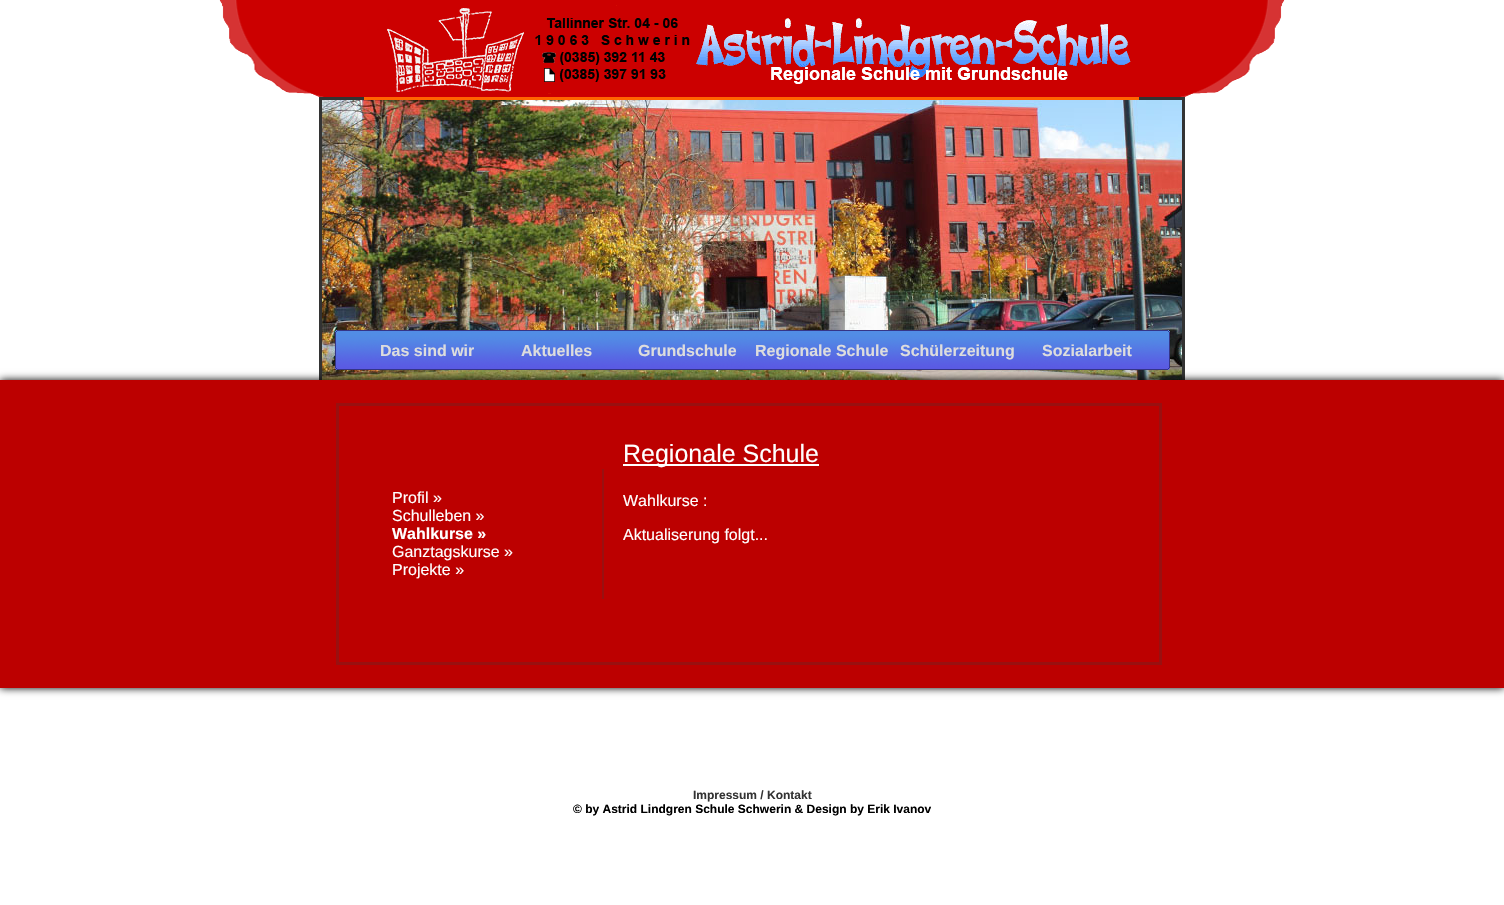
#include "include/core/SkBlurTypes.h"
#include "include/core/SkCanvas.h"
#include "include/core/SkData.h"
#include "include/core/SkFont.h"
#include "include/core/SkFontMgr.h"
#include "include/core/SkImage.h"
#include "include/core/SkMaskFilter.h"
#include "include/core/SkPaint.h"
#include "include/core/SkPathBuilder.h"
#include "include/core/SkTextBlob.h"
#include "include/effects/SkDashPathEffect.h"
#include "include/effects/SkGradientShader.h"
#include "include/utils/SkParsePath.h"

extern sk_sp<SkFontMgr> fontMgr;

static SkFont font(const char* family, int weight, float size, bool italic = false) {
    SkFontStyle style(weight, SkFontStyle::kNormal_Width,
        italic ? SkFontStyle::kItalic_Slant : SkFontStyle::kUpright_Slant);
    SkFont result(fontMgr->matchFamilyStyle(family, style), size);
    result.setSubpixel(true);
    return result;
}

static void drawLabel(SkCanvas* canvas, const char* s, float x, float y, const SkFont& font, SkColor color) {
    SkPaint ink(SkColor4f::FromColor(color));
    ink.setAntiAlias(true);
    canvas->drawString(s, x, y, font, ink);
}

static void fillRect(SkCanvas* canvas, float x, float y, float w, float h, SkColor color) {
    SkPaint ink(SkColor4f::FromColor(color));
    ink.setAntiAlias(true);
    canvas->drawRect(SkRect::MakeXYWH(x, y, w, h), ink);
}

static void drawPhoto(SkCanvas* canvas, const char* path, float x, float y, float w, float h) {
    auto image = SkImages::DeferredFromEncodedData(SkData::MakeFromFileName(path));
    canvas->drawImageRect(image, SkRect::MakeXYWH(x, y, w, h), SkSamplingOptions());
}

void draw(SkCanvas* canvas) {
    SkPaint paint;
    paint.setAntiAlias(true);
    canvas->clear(0xFFFFFFFF);
    drawPhoto(canvas, "assets/img3.png", 322, 100, 860, 280);
    paint.setStroke(true);
    paint.setStrokeWidth(3);
    paint.setColor(0xFF333333);
    canvas->drawRect(SkRect::MakeXYWH(320.5f, 98.5f, 863, 286), paint);
    drawPhoto(canvas, "assets/img1.png", 219, 0, 1066, 100);
    drawPhoto(canvas, "assets/img2.png", 387, 5, 744, 89);
    drawPhoto(canvas, "assets/img4.png", 335, 330, 835, 40);
    SkFont font1 = font("Liberation Sans", 700, 16);
    drawLabel(canvas, "Das sind wir", 380, 356, font1, 0xFFDDDDDD);
    drawLabel(canvas, "Aktuelles", 521, 356, font1, 0xFFDDDDDD);
    drawLabel(canvas, "Grundschule", 638, 356, font1, 0xFFDDDDDD);
    drawLabel(canvas, "Regionale Schule", 755, 356, font1, 0xFFDDDDDD);
    drawLabel(canvas, "Schülerzeitung", 900, 356, font1, 0xFFDDDDDD);
    drawLabel(canvas, "Sozialarbeit", 1042, 356, font1, 0xFFDDDDDD);
    paint.setStroke(false);
    paint.setColor(0xFF000000);
    paint.setMaskFilter(SkMaskFilter::MakeBlur(kNormal_SkBlurStyle, 4));
    canvas->drawRect(SkRect::MakeXYWH(0, 380, 1504, 308), paint);
    paint.setMaskFilter(nullptr);
    fillRect(canvas, 0, 380, 1504, 308, 0xFFBC0000);
    paint.setStroke(true);
    paint.setColor(0xFF991010);
    canvas->drawRect(SkRect::MakeXYWH(337.5f, 404.5f, 823, 259), paint);
    fillRect(canvas, 602, 469, 2, 130, 0xFF991010);
    SkFont font2 = font("Liberation Sans", 400, 16);
    drawLabel(canvas, "Profil »", 392, 503, font2, 0xFFFFFFFF);
    drawLabel(canvas, "Schulleben »", 392, 521, font2, 0xFFFFFFFF);
    drawLabel(canvas, "Wahlkurse »", 392, 539, font1, 0xFFFFFFFF);
    drawLabel(canvas, "Ganztagskurse »", 392, 557, font2, 0xFFFFFFFF);
    drawLabel(canvas, "Projekte »", 392, 575, font2, 0xFFFFFFFF);
    fillRect(canvas, 623, 464, 196, 2, 0xFFFFFFFF);
    SkFont font3 = font("Liberation Sans", 400, 25);
    drawLabel(canvas, "Regionale Schule", 623, 462, font3, 0xFFFFFFFF);
    drawLabel(canvas, "Wahlkurse :", 623, 506, font2, 0xFFFFFFFF);
    drawLabel(canvas, "Aktualiserung folgt...", 623, 540, font2, 0xFFFFFFFF);
    SkFont font4 = font("Liberation Sans", 700, 12);
    drawLabel(canvas, "Impressum / Kontakt", 693, 799, font4, 0xFF333333);
    drawLabel(canvas, "© by Astrid Lindgren Schule Schwerin & Design by Erik Ivanov", 573, 813, font4, 0xFF000000);
}
